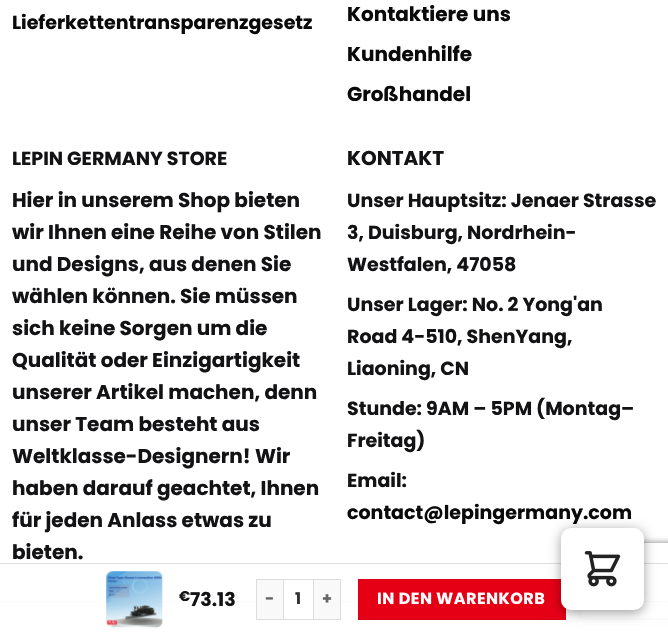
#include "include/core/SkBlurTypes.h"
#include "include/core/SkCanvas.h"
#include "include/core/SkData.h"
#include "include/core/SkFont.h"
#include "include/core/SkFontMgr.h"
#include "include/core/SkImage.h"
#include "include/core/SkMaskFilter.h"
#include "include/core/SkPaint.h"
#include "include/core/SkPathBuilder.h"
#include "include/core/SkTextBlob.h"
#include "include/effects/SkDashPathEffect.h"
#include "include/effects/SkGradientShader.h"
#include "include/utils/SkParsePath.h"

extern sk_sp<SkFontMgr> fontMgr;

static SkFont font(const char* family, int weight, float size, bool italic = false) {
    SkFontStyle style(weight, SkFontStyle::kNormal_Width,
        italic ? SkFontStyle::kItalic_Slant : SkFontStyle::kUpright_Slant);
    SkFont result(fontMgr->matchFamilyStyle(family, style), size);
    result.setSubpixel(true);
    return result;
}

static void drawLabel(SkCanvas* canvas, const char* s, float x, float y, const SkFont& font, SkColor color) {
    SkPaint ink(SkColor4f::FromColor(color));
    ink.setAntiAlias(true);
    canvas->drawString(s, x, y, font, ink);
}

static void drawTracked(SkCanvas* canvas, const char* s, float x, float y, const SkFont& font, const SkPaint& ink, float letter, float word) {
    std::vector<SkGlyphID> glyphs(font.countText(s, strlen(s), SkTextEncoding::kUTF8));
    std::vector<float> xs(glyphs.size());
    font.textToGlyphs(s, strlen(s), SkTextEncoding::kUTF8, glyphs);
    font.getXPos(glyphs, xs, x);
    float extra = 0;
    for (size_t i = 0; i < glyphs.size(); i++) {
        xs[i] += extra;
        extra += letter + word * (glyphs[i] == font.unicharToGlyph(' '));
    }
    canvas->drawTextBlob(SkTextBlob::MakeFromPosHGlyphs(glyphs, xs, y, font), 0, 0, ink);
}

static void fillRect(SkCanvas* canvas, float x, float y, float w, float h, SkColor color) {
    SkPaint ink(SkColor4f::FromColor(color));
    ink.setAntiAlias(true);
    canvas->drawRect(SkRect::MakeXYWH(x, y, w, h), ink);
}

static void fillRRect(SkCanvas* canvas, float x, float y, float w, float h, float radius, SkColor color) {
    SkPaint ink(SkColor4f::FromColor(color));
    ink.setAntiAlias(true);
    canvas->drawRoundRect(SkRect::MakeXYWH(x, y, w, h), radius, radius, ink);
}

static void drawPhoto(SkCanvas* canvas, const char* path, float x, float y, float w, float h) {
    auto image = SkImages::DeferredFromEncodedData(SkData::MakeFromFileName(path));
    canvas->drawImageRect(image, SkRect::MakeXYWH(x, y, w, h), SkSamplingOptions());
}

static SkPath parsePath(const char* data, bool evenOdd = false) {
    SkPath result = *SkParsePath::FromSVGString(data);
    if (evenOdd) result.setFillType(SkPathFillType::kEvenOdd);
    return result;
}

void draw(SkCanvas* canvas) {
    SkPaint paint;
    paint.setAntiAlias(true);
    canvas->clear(0xFFFFFFFF);
    SkFont font1 = font("Poppins", 700, 19);
    drawLabel(canvas, "Lieferkettentransparenzgesetz", 12, 29, font1, 0xFF0A0A0A);
    SkFont font2 = font("Poppins", 700, 20);
    drawLabel(canvas, "Kontaktiere uns", 347, 21, font2, 0xFF0A0A0A);
    drawLabel(canvas, "Kundenhilfe", 347, 61, font2, 0xFF0A0A0A);
    drawLabel(canvas, "Großhandel", 347, 101, font2, 0xFF0A0A0A);
    drawLabel(canvas, "LEPIN GERMANY STORE", 12, 165, font1, 0xFF131315);
    drawLabel(canvas, "Hier in unserem Shop bieten", 12, 207, font2, 0xFF131315);
    drawLabel(canvas, "wir Ihnen eine Reihe von Stilen", 12, 239, font2, 0xFF131315);
    drawLabel(canvas, "und Designs, aus denen Sie", 12, 271, font2, 0xFF131315);
    drawLabel(canvas, "wählen können. Sie müssen", 12, 303, font2, 0xFF131315);
    drawLabel(canvas, "sich keine Sorgen um die", 12, 335, font2, 0xFF131315);
    drawLabel(canvas, "Qualität oder Einzigartigkeit", 12, 367, font2, 0xFF131315);
    drawLabel(canvas, "unserer Artikel machen, denn", 12, 399, font2, 0xFF131315);
    drawLabel(canvas, "unser Team besteht aus", 12, 431, font2, 0xFF131315);
    drawLabel(canvas, "Weltklasse-Designern! Wir", 12, 463, font2, 0xFF131315);
    drawLabel(canvas, "haben darauf geachtet, Ihnen", 12, 495, font2, 0xFF131315);
    drawLabel(canvas, "für jeden Anlass etwas zu", 12, 527, font2, 0xFF131315);
    drawLabel(canvas, "bieten.", 12, 559, font2, 0xFF131315);
    drawLabel(canvas, "KONTAKT", 347, 165, font2, 0xFF131315);
    drawLabel(canvas, "Unser Hauptsitz: Jenaer Strasse", 347, 207, font1, 0xFF131315);
    drawLabel(canvas, "3, Duisburg, Nordrhein-", 347, 239, font1, 0xFF131315);
    drawLabel(canvas, "Westfalen, 47058", 347, 271, font1, 0xFF131315);
    drawLabel(canvas, "Unser Lager: No. 2 Yong'an", 347, 311, font1, 0xFF131315);
    drawLabel(canvas, "Road 4-510, ShenYang,", 347, 343, font1, 0xFF131315);
    drawLabel(canvas, "Liaoning, CN", 347, 375, font1, 0xFF131315);
    drawLabel(canvas, "Stunde: 9AM – 5PM (Montag–", 347, 415, font1, 0xFF131315);
    drawLabel(canvas, "Freitag)", 347, 447, font1, 0xFF131315);
    drawLabel(canvas, "Email:", 347, 487, font1, 0xFF131315);
    drawLabel(canvas, "contact@lepingermany.com", 347, 519, font1, 0xFF0A0A0A);
    fillRect(canvas, 0, 601, 668, 1, 0xFFC9C9C9);
    canvas->save();
    canvas->clipPath(parsePath("M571 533H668V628H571ZM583.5 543H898.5C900 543 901 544 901 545.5V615.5C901 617 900 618 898.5 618H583.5C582 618 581 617 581 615.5V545.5C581 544 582 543 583.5 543Z", true), true);
    paint.setColor(0xFF808080);
    paint.setMaskFilter(SkMaskFilter::MakeBlur(kNormal_SkBlurStyle, 3));
    canvas->drawRoundRect(SkRect::MakeXYWH(581, 543, 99, 75), 2.5f, 2.5f, paint);
    paint.setMaskFilter(nullptr);
    canvas->restore();
    fillRect(canvas, 0, 564, 668, 60, 0xE6FFFFFF);
    fillRect(canvas, 0, 563, 668, 1, 0xFFDDDDDD);
    drawPhoto(canvas, "assets/img1.png", 106, 571, 57, 57);
    SkFont font3 = font("Poppins", 700, 14);
    drawLabel(canvas, "€", 179, 601, font3, 0xFF131315);
    drawLabel(canvas, "73.13", 190, 606, font1, 0xFF131315);
    fillRect(canvas, 257, 580, 26, 39, 0xFFF9F9F9);
    fillRect(canvas, 256, 579, 27, 1, 0xFFDDDDDD);
    fillRect(canvas, 256, 619, 27, 1, 0xFFDDDDDD);
    fillRect(canvas, 256, 579, 1, 41, 0xFFDDDDDD);
    SkFont font4 = font("Poppins", 700, 16);
    drawLabel(canvas, "-", 265, 604, font4, 0xFF666666);
    fillRect(canvas, 284, 601, 29, 1, 0xFFFFFFFF);
    paint.setStroke(true);
    paint.setStrokeWidth(1);
    paint.setColor(0xFFDDDDDD);
    canvas->drawRect(SkRect::MakeXYWH(283.5f, 579.5f, 30, 40), paint);
    drawLabel(canvas, "1", 295, 604, font4, 0xFF333333);
    fillRect(canvas, 314, 580, 26, 39, 0xFFF9F9F9);
    fillRect(canvas, 314, 579, 27, 1, 0xFFDDDDDD);
    fillRect(canvas, 340, 579, 1, 41, 0xFFDDDDDD);
    fillRect(canvas, 314, 619, 27, 1, 0xFFDDDDDD);
    drawLabel(canvas, "+", 322, 604, font4, 0xFF666666);
    paint.setStroke(false);
    paint.setColor(0xFFE60016);
    canvas->drawRect(SkRect::MakeXYWH(358.5f, 579.5f, 207, 40), paint);
    paint.setStroke(true);
    paint.setColor(0xFFDB0015);
    canvas->drawRect(SkRect::MakeXYWH(358.5f, 579.5f, 207, 40), paint);
    paint.setStroke(false);
    paint.setColor(0xFFFFFFFF);
    drawTracked(canvas, "IN DEN WARENKORB", 377, 604, font4, paint, 0.5f, 0);
    paint.setColor(0x5E000000);
    paint.setMaskFilter(SkMaskFilter::MakeBlur(kNormal_SkBlurStyle, 6));
    canvas->drawRoundRect(SkRect::MakeXYWH(561, 530, 83, 83), 10, 10, paint);
    paint.setMaskFilter(nullptr);
    fillRRect(canvas, 561, 528, 83, 82, 10, 0xFFFFFFFF);
    drawPhoto(canvas, "assets/img2.png", 584, 551, 37, 36);
}
